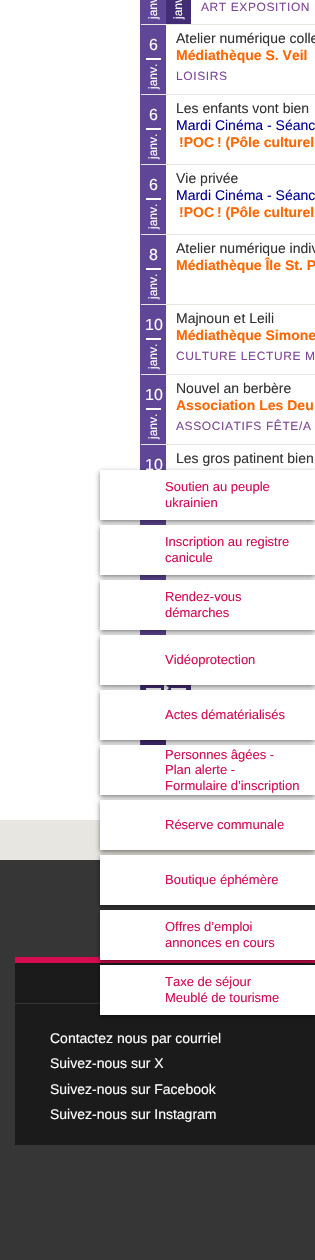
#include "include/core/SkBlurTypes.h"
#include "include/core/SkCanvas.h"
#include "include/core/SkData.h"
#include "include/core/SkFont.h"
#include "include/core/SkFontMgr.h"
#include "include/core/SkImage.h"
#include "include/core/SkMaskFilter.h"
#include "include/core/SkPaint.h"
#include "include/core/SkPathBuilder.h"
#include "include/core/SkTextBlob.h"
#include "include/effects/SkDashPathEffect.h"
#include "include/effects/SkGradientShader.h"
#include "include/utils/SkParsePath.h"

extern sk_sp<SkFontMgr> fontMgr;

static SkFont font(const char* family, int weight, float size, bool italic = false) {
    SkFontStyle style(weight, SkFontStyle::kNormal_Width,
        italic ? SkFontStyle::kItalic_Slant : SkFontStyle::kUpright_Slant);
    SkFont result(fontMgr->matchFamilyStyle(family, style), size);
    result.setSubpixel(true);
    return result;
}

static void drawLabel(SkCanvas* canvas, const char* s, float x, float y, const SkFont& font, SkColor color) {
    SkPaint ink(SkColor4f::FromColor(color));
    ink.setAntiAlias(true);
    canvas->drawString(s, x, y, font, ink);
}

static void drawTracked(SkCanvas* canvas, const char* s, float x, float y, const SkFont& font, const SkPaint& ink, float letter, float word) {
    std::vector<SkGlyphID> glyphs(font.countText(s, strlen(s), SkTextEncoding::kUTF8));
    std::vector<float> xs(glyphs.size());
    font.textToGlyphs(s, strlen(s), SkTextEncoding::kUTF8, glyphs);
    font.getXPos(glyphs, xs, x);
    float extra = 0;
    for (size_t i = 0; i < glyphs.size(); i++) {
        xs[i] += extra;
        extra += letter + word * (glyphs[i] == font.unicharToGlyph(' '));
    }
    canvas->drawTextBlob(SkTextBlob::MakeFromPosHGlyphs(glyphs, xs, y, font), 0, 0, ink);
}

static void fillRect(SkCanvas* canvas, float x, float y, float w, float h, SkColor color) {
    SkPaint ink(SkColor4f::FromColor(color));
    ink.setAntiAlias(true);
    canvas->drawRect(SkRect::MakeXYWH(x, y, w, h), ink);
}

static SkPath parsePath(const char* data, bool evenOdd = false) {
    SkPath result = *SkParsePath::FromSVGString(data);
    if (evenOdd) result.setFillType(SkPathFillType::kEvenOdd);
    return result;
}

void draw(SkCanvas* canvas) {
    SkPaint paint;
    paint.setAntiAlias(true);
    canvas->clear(0xFFE7E6E0);
    fillRect(canvas, 0, 0, 315, 820, 0xFFFFFFFF);
    fillRect(canvas, 140, 24, 175, 1, 0xFFE7E6E0);
    fillRect(canvas, 140, 0, 1, 25, 0xFF5F4697);
    fillRect(canvas, 141, 0, 25, 24, 0xFF5F4697);
    SkFont font1 = font("Liberation Sans", 400, 12);
    canvas->save();
    canvas->rotate(-90, 157, 19);
    drawLabel(canvas, "janv.", 157, 19, font1, 0xFFFFFFFF);
    canvas->restore();
    fillRect(canvas, 166, 0, 25, 24, 0xFF432C76);
    canvas->save();
    canvas->rotate(-90, 182, 19);
    drawLabel(canvas, "janv.", 182, 19, font1, 0xFFFFFFFF);
    canvas->restore();
    paint.setColor(0xFF804697);
    drawTracked(canvas, "ART EXPOSITION", 201, 11, font1, paint, 0.6f, 0);
    fillRect(canvas, 140, 94, 175, 1, 0xFFE7E6E0);
    fillRect(canvas, 140, 25, 1, 70, 0xFF5F4697);
    fillRect(canvas, 141, 25, 25, 69, 0xFF5F4697);
    SkFont font2 = font("Liberation Sans", 400, 16);
    drawLabel(canvas, "6", 149, 50, font2, 0xFFFFFFFF);
    fillRect(canvas, 146, 58, 15, 2, 0xFFFFFFFF);
    canvas->save();
    canvas->rotate(-90, 157, 89);
    drawLabel(canvas, "janv.", 157, 89, font1, 0xFFFFFFFF);
    canvas->restore();
    SkFont font3 = font("Liberation Sans", 400, 14);
    drawLabel(canvas, "Atelier numérique colle", 176, 43, font3, 0xFF333333);
    SkFont font4 = font("Liberation Sans", 700, 14);
    drawLabel(canvas, "Médiathèque S. Veil", 176, 60, font4, 0xFFFF6600);
    drawTracked(canvas, "LOISIRS", 176, 80, font1, paint, 0.6f, 0);
    fillRect(canvas, 140, 164, 175, 1, 0xFFE7E6E0);
    fillRect(canvas, 140, 95, 1, 70, 0xFF5F4697);
    fillRect(canvas, 141, 95, 25, 69, 0xFF5F4697);
    drawLabel(canvas, "6", 149, 120, font2, 0xFFFFFFFF);
    fillRect(canvas, 146, 128, 15, 2, 0xFFFFFFFF);
    canvas->save();
    canvas->rotate(-90, 157, 159);
    drawLabel(canvas, "janv.", 157, 159, font1, 0xFFFFFFFF);
    canvas->restore();
    drawLabel(canvas, "Les enfants vont bien", 176, 113, font3, 0xFF333333);
    drawLabel(canvas, "Mardi Cinéma - Séanc", 176, 130, font3, 0xFF000099);
    drawLabel(canvas, "!POC", 179, 147, font4, 0xFFFF6600);
    drawLabel(canvas, "! (Pôle culturel", 217, 147, font4, 0xFFFF6600);
    fillRect(canvas, 140, 234, 175, 1, 0xFFE7E6E0);
    fillRect(canvas, 140, 165, 1, 70, 0xFF5F4697);
    fillRect(canvas, 141, 165, 25, 69, 0xFF5F4697);
    drawLabel(canvas, "6", 149, 190, font2, 0xFFFFFFFF);
    fillRect(canvas, 146, 198, 15, 2, 0xFFFFFFFF);
    canvas->save();
    canvas->rotate(-90, 157, 229);
    drawLabel(canvas, "janv.", 157, 229, font1, 0xFFFFFFFF);
    canvas->restore();
    drawLabel(canvas, "Vie privée", 176, 183, font3, 0xFF333333);
    drawLabel(canvas, "Mardi Cinéma - Séanc", 176, 200, font3, 0xFF000099);
    drawLabel(canvas, "!POC", 179, 217, font4, 0xFFFF6600);
    drawLabel(canvas, "! (Pôle culturel", 217, 217, font4, 0xFFFF6600);
    fillRect(canvas, 140, 304, 175, 1, 0xFFE7E6E0);
    fillRect(canvas, 140, 235, 1, 70, 0xFF5F4697);
    fillRect(canvas, 141, 235, 25, 69, 0xFF5F4697);
    drawLabel(canvas, "8", 149, 260, font2, 0xFFFFFFFF);
    fillRect(canvas, 146, 268, 15, 2, 0xFFFFFFFF);
    canvas->save();
    canvas->rotate(-90, 157, 299);
    drawLabel(canvas, "janv.", 157, 299, font1, 0xFFFFFFFF);
    canvas->restore();
    drawLabel(canvas, "Atelier numérique indiv", 176, 253, font3, 0xFF333333);
    drawLabel(canvas, "Médiathèque Île St. P", 176, 270, font4, 0xFFFF6600);
    fillRect(canvas, 140, 374, 175, 1, 0xFFE7E6E0);
    fillRect(canvas, 140, 305, 1, 70, 0xFF5F4697);
    fillRect(canvas, 141, 305, 25, 69, 0xFF5F4697);
    drawLabel(canvas, "10", 145, 330, font2, 0xFFFFFFFF);
    fillRect(canvas, 146, 338, 15, 2, 0xFFFFFFFF);
    canvas->save();
    canvas->rotate(-90, 157, 369);
    drawLabel(canvas, "janv.", 157, 369, font1, 0xFFFFFFFF);
    canvas->restore();
    drawLabel(canvas, "Majnoun et Leili", 176, 323, font3, 0xFF333333);
    drawLabel(canvas, "Médiathèque Simone", 176, 340, font4, 0xFFFF6600);
    drawTracked(canvas, "CULTURE LECTURE M", 176, 360, font1, paint, 0.6f, 0);
    fillRect(canvas, 140, 444, 175, 1, 0xFFE7E6E0);
    fillRect(canvas, 140, 375, 1, 95, 0xFF5F4697);
    fillRect(canvas, 141, 375, 25, 69, 0xFF5F4697);
    drawLabel(canvas, "10", 145, 400, font2, 0xFFFFFFFF);
    fillRect(canvas, 146, 408, 15, 2, 0xFFFFFFFF);
    canvas->save();
    canvas->rotate(-90, 157, 439);
    drawLabel(canvas, "janv.", 157, 439, font1, 0xFFFFFFFF);
    canvas->restore();
    drawLabel(canvas, "Nouvel an berbère", 176, 393, font3, 0xFF333333);
    drawLabel(canvas, "Association Les Deu", 176, 410, font4, 0xFFFF6600);
    drawTracked(canvas, "ASSOCIATIFS FÊTE/A", 176, 430, font1, paint, 0.6f, 0);
    fillRect(canvas, 141, 445, 25, 25, 0xFF5F4697);
    drawLabel(canvas, "10", 145, 470, font2, 0xFFFFFFFF);
    drawLabel(canvas, "Les gros patinent bien", 176, 463, font3, 0xFF333333);
    fillRect(canvas, 140, 515, 1, 70, 0xFF5F4697);
    fillRect(canvas, 141, 520, 25, 60, 0xFF5F4697);
    fillRect(canvas, 140, 630, 26, 5, 0xFF5F4697);
    fillRect(canvas, 140, 685, 1, 5, 0xFF5F4697);
    fillRect(canvas, 141, 685, 23, 5, 0xFF432C76);
    fillRect(canvas, 146, 688, 15, 2, 0xFFFFFFFF);
    fillRect(canvas, 166, 685, 25, 5, 0xFF432C76);
    paint.setColor(0xFFFFFFFF);
    canvas->drawPath(parsePath("M164 693V683L169 688Z"), paint);
    fillRect(canvas, 171, 688, 15, 2, 0xFFFFFFFF);
    fillRect(canvas, 140, 740, 1, 5, 0xFF5F4697);
    fillRect(canvas, 141, 740, 25, 5, 0xFF432C76);
    fillRect(canvas, 0, 860, 315, 400, 0xFF363636);
    fillRect(canvas, 15, 963, 300, 182, 0xFF1B1B1B);
    fillRect(canvas, 15, 957, 300, 6, 0xFFD70B52);
    fillRect(canvas, 15, 1003, 85, 1, 0xFF363636);
    drawLabel(canvas, "Contactez nous par courriel", 50, 1043, font3, 0xFFFFFFFF);
    drawLabel(canvas, "Suivez-nous sur X", 50, 1068, font3, 0xFFFFFFFF);
    drawLabel(canvas, "Suivez-nous sur Facebook", 50, 1094, font3, 0xFFFFFFFF);
    drawLabel(canvas, "Suivez-nous sur Instagram", 50, 1119, font3, 0xFFFFFFFF);
    paint.setColor(0x80000000);
    paint.setMaskFilter(SkMaskFilter::MakeBlur(kNormal_SkBlurStyle, 2.5f));
    canvas->drawRect(SkRect::MakeXYWH(100, 472, 215, 50), paint);
    paint.setMaskFilter(nullptr);
    fillRect(canvas, 100, 470, 215, 50, 0xFFFFFFFF);
    SkFont font5 = font("Liberation Sans", 400, 13);
    drawLabel(canvas, "Soutien au peuple", 165, 491, font5, 0xFFD70B52);
    drawLabel(canvas, "ukrainien", 165, 507, font5, 0xFFD70B52);
    paint.setMaskFilter(SkMaskFilter::MakeBlur(kNormal_SkBlurStyle, 2.5f));
    canvas->drawRect(SkRect::MakeXYWH(100, 527, 215, 50), paint);
    paint.setMaskFilter(nullptr);
    fillRect(canvas, 100, 525, 215, 50, 0xFFFFFFFF);
    drawLabel(canvas, "Inscription au registre", 165, 546, font5, 0xFFD70B52);
    drawLabel(canvas, "canicule", 165, 562, font5, 0xFFD70B52);
    paint.setMaskFilter(SkMaskFilter::MakeBlur(kNormal_SkBlurStyle, 2.5f));
    canvas->drawRect(SkRect::MakeXYWH(100, 582, 215, 50), paint);
    paint.setMaskFilter(nullptr);
    fillRect(canvas, 100, 580, 215, 50, 0xFFFFFFFF);
    drawLabel(canvas, "Rendez-vous", 165, 601, font5, 0xFFD70B52);
    drawLabel(canvas, "démarches", 165, 617, font5, 0xFFD70B52);
    paint.setMaskFilter(SkMaskFilter::MakeBlur(kNormal_SkBlurStyle, 2.5f));
    canvas->drawRect(SkRect::MakeXYWH(100, 637, 215, 50), paint);
    paint.setMaskFilter(nullptr);
    fillRect(canvas, 100, 635, 215, 50, 0xFFFFFFFF);
    drawLabel(canvas, "Vidéoprotection", 165, 664, font5, 0xFFD70B52);
    paint.setMaskFilter(SkMaskFilter::MakeBlur(kNormal_SkBlurStyle, 2.5f));
    canvas->drawRect(SkRect::MakeXYWH(100, 692, 215, 50), paint);
    paint.setMaskFilter(nullptr);
    fillRect(canvas, 100, 690, 215, 50, 0xFFFFFFFF);
    drawLabel(canvas, "Actes dématérialisés", 165, 719, font5, 0xFFD70B52);
    paint.setMaskFilter(SkMaskFilter::MakeBlur(kNormal_SkBlurStyle, 2.5f));
    canvas->drawRect(SkRect::MakeXYWH(100, 747, 215, 50), paint);
    paint.setMaskFilter(nullptr);
    fillRect(canvas, 100, 745, 215, 50, 0xFFFFFFFF);
    drawLabel(canvas, "Personnes âgées -", 165, 759, font5, 0xFFD70B52);
    drawLabel(canvas, "Plan alerte -", 165, 774, font5, 0xFFD70B52);
    drawLabel(canvas, "Formulaire d’inscription", 165, 790, font5, 0xFFD70B52);
    paint.setMaskFilter(SkMaskFilter::MakeBlur(kNormal_SkBlurStyle, 2.5f));
    canvas->drawRect(SkRect::MakeXYWH(100, 802, 215, 50), paint);
    paint.setMaskFilter(nullptr);
    fillRect(canvas, 100, 800, 215, 50, 0xFFFFFFFF);
    drawLabel(canvas, "Réserve communale", 165, 829, font5, 0xFFD70B52);
    paint.setMaskFilter(SkMaskFilter::MakeBlur(kNormal_SkBlurStyle, 2.5f));
    canvas->drawRect(SkRect::MakeXYWH(100, 857, 215, 50), paint);
    paint.setMaskFilter(nullptr);
    fillRect(canvas, 100, 855, 215, 50, 0xFFFFFFFF);
    drawLabel(canvas, "Boutique éphémère", 165, 884, font5, 0xFFD70B52);
    paint.setMaskFilter(SkMaskFilter::MakeBlur(kNormal_SkBlurStyle, 2.5f));
    canvas->drawRect(SkRect::MakeXYWH(100, 912, 215, 50), paint);
    paint.setMaskFilter(nullptr);
    fillRect(canvas, 100, 910, 215, 50, 0xFFFFFFFF);
    drawLabel(canvas, "Offres d’emploi", 165, 931, font5, 0xFFD70B52);
    drawLabel(canvas, "annonces en cours", 165, 947, font5, 0xFFD70B52);
    paint.setMaskFilter(SkMaskFilter::MakeBlur(kNormal_SkBlurStyle, 2.5f));
    canvas->drawRect(SkRect::MakeXYWH(100, 967, 215, 50), paint);
    paint.setMaskFilter(nullptr);
    fillRect(canvas, 100, 965, 215, 50, 0xFFFFFFFF);
    drawLabel(canvas, "Taxe de séjour", 165, 986, font5, 0xFFD70B52);
    drawLabel(canvas, "Meublé de tourisme", 165, 1002, font5, 0xFFD70B52);
}
